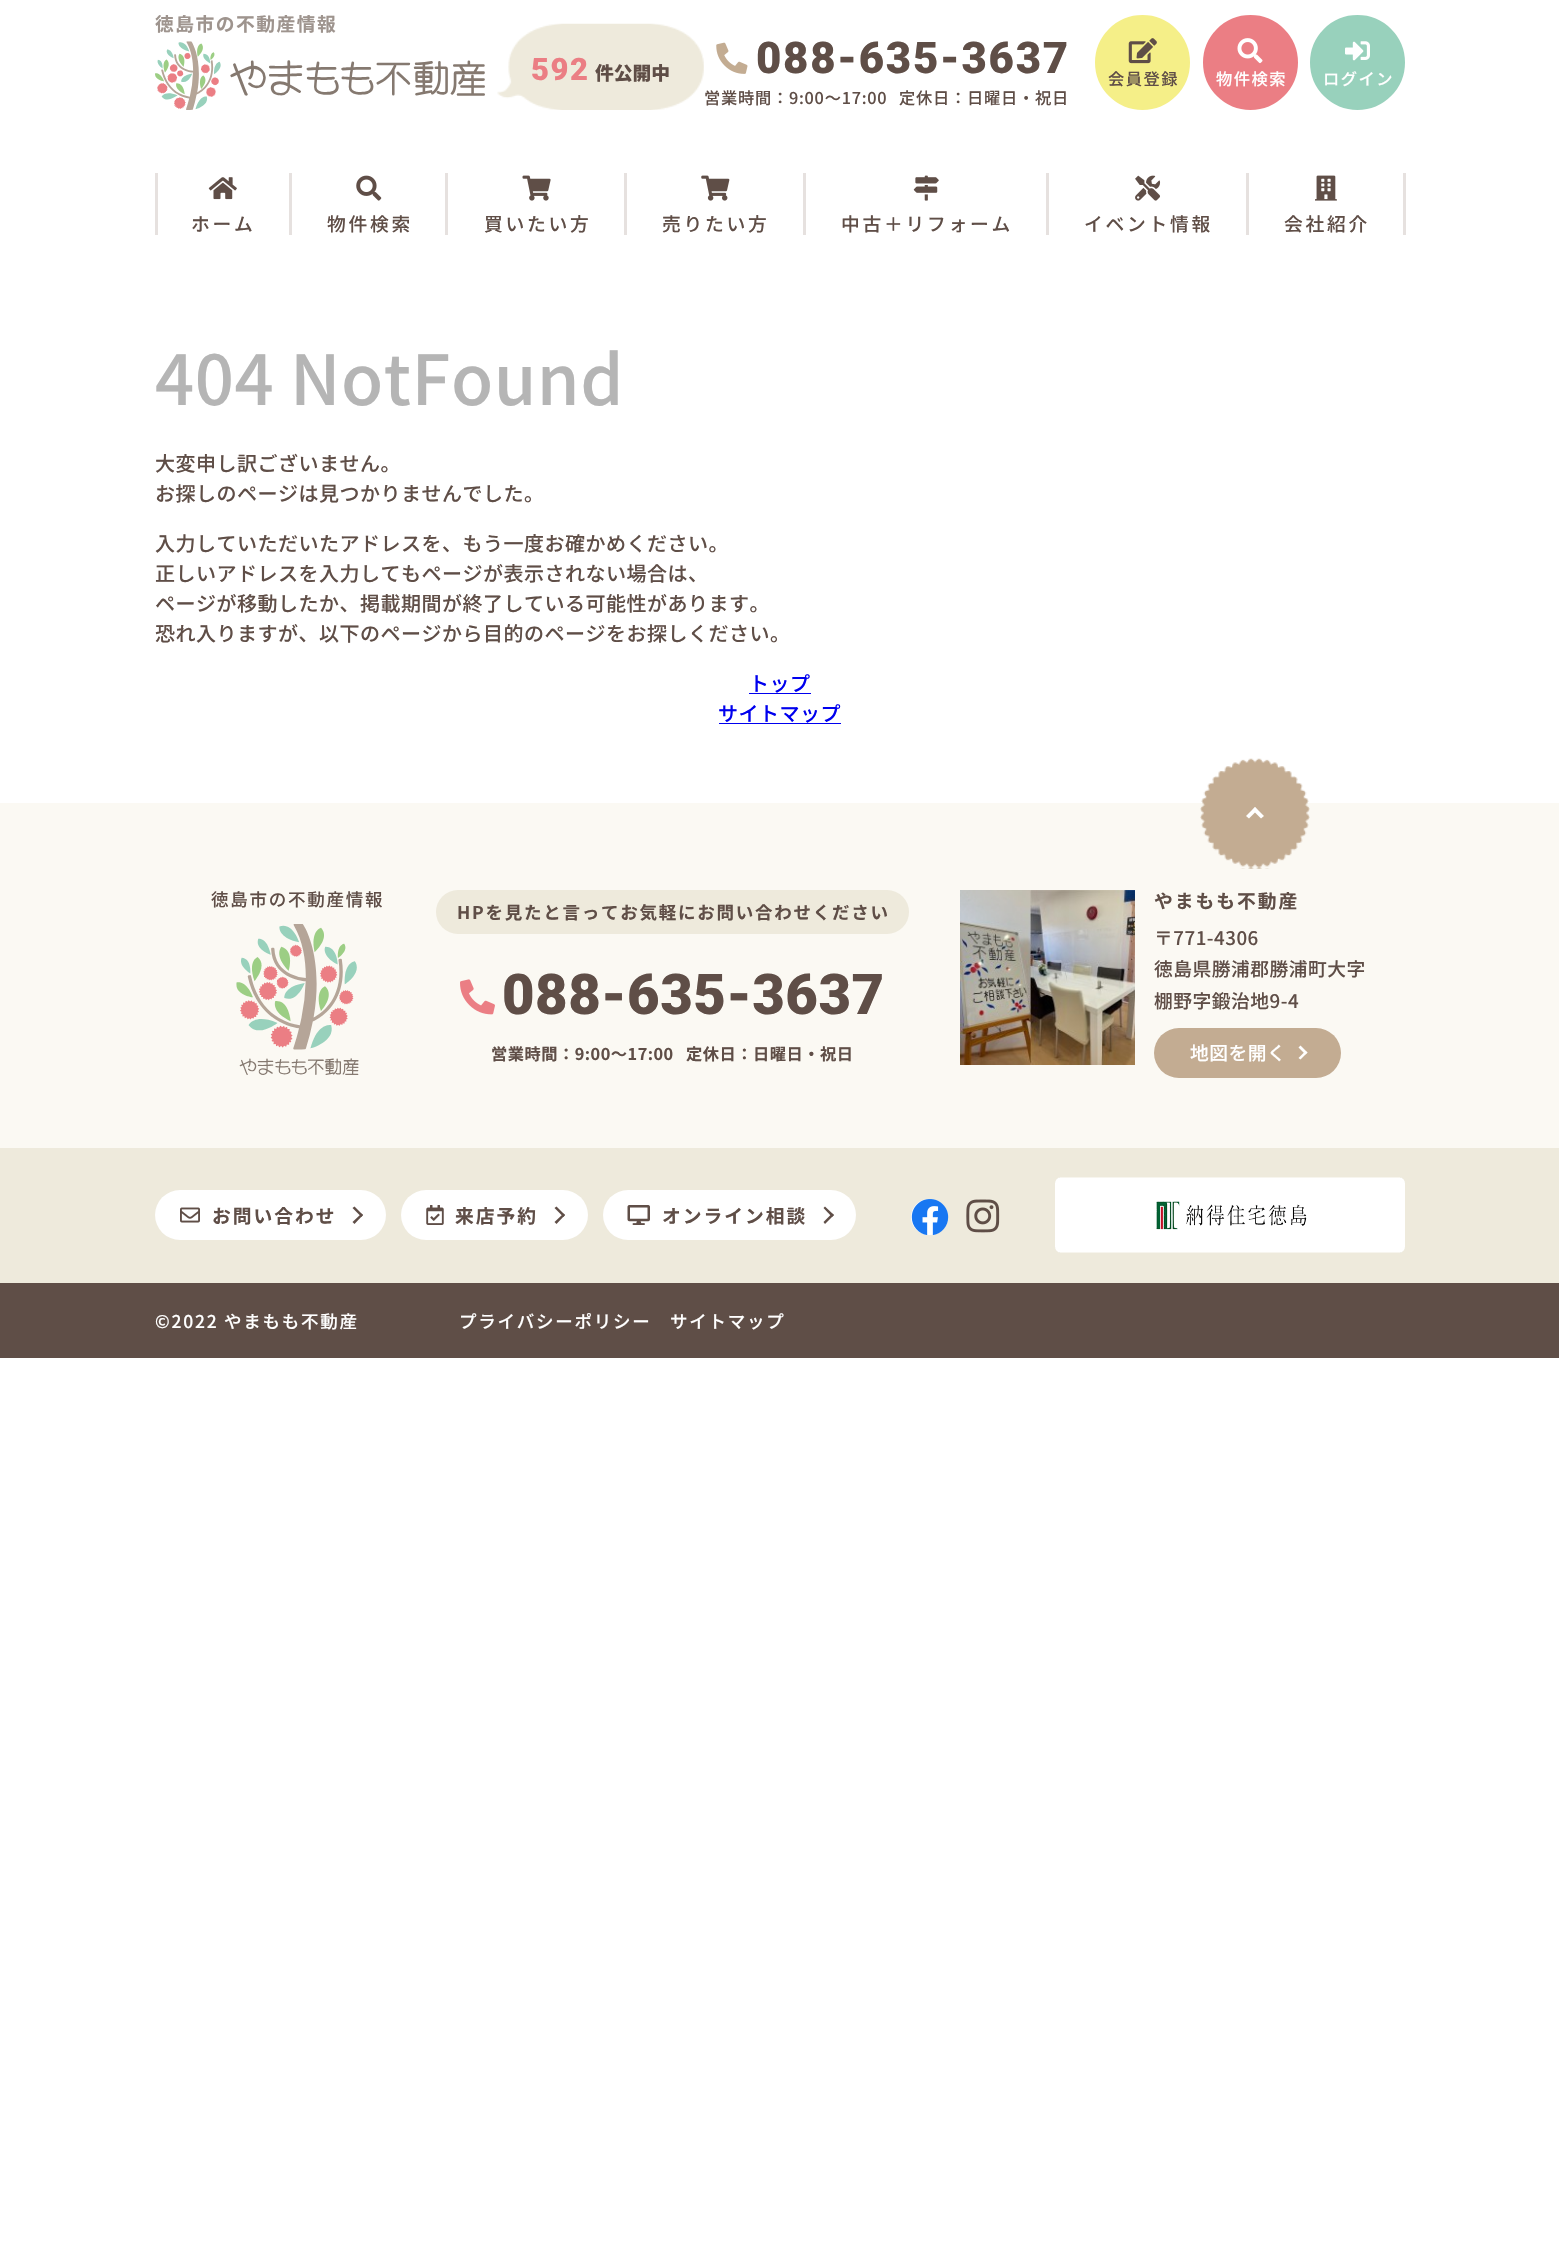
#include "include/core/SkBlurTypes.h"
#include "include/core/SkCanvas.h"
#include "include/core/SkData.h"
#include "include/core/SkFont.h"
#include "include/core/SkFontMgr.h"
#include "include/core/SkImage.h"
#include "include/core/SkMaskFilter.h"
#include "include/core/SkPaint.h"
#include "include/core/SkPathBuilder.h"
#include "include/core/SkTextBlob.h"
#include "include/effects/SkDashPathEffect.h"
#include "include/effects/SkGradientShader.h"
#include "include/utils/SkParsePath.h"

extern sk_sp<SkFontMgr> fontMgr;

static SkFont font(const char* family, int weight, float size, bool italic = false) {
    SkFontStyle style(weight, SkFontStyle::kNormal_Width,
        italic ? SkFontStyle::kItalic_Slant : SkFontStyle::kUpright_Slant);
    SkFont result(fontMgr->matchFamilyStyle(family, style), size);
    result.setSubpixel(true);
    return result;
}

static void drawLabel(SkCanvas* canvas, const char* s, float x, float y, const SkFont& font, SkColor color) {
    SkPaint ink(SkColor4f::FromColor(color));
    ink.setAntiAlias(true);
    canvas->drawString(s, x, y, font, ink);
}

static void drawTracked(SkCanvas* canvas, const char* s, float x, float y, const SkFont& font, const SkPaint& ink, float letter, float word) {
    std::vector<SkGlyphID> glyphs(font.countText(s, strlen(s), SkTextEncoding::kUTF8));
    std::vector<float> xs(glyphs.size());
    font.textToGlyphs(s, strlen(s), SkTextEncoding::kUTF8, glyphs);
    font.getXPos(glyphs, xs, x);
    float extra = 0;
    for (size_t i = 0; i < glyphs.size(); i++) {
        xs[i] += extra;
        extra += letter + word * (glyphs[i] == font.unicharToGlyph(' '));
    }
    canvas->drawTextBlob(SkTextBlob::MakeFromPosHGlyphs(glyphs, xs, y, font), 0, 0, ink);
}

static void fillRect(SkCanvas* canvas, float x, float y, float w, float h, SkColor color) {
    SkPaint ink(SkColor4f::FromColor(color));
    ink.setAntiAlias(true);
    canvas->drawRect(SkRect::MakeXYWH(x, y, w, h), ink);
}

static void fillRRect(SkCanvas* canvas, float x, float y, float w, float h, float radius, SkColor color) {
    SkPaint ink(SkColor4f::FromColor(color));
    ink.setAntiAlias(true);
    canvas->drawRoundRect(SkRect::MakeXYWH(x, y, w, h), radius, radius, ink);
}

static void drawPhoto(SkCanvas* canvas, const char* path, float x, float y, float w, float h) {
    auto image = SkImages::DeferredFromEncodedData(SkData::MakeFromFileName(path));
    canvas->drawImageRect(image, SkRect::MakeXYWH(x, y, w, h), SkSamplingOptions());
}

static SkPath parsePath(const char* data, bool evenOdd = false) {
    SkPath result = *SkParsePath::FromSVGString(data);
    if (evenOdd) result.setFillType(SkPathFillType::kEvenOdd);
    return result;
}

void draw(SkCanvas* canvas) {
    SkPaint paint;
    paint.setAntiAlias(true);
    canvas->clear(0xFFFFFFFF);
    SkFont font1 = font("Noto Sans JP", 700, 18.75f);
    paint.setColor(0xFF9E948E);
    drawTracked(canvas, "徳島市の不動産情報", 155, 31, font1, paint, 1.5f, 0);
    drawPhoto(canvas, "assets/img1.png", 155, 41, 330, 69);
    drawPhoto(canvas, "assets/img2.png", 497, 23, 207, 87);
    SkFont font2 = font("Roboto", 900, 31);
    paint.setColor(0xFFEB7E84);
    drawTracked(canvas, "592", 531, 80, font2, paint, 1.5f, 0);
    SkFont font3 = font("Noto Sans JP", 900, 18.75f);
    drawLabel(canvas, "件公開中", 595, 80, font3, 0xFF5F4E47);
    drawPhoto(canvas, "assets/img3.png", 716, 42, 32, 32);
    SkFont font4 = font("Roboto", 900, 43.75f);
    paint.setColor(0xFF5F4E47);
    drawTracked(canvas, "088-635-3637", 756, 73, font4, paint, 1.75f, 0);
    SkFont font5 = font("Noto Sans JP", 500, 16.25f);
    drawTracked(canvas, "営業時間：9:00〜17:00", 704, 104, font5, paint, 0.75f, 0);
    drawTracked(canvas, "定休日：日曜日・祝日", 899, 104, font5, paint, 0.75f, 0);
    paint.setColor(0xFFF5EF88);
    canvas->drawCircle(1142.5f, 62.5f, 46, paint);
    paint.setStroke(true);
    paint.setStrokeWidth(3);
    canvas->drawCircle(1142.5f, 62.5f, 46, paint);
    drawPhoto(canvas, "assets/img4.png", 1128, 38, 29, 26);
    paint.setStroke(false);
    paint.setColor(0xFF5F4E47);
    drawTracked(canvas, "会員登録", 1108, 85, font5, paint, 1.5f, 0);
    paint.setColor(0xFFEB7E84);
    canvas->drawCircle(1250.5f, 62.5f, 46, paint);
    paint.setStroke(true);
    canvas->drawCircle(1250.5f, 62.5f, 46, paint);
    drawPhoto(canvas, "assets/img5.png", 1237, 38, 26, 26);
    paint.setStroke(false);
    paint.setColor(0xFFFFFFFF);
    drawTracked(canvas, "物件検索", 1216, 85, font5, paint, 1.5f, 0);
    paint.setColor(0xFF98D1BC);
    canvas->drawCircle(1357.5f, 62.5f, 46, paint);
    paint.setStroke(true);
    canvas->drawCircle(1357.5f, 62.5f, 46, paint);
    drawPhoto(canvas, "assets/img6.png", 1345, 41, 25, 20);
    paint.setStroke(false);
    paint.setColor(0xFFFFFFFF);
    drawTracked(canvas, "ログイン", 1323, 85, font5, paint, 1.5f, 0);
    fillRect(canvas, 155, 173, 3, 62, 0xFFE6E1DF);
    drawPhoto(canvas, "assets/img7.png", 208, 177, 29, 23);
    SkFont font6 = font("Noto Sans JP", 500, 18.75f);
    paint.setColor(0xFF5F4E47);
    drawTracked(canvas, "ホーム", 191, 231, font6, paint, 2.75f, 0);
    fillRect(canvas, 289, 173, 3, 62, 0xFFE6E1DF);
    drawPhoto(canvas, "assets/img8.png", 356, 175, 26, 26);
    drawTracked(canvas, "物件検索", 327, 231, font6, paint, 2.75f, 0);
    fillRect(canvas, 445, 173, 3, 62, 0xFFE6E1DF);
    drawPhoto(canvas, "assets/img9.png", 522, 175, 29, 26);
    drawTracked(canvas, "買いたい方", 484, 231, font6, paint, 2.75f, 0);
    fillRect(canvas, 624, 173, 3, 62, 0xFFE6E1DF);
    drawPhoto(canvas, "assets/img10.png", 701, 175, 29, 26);
    drawTracked(canvas, "売りたい方", 662, 231, font6, paint, 2.75f, 0);
    fillRect(canvas, 803, 173, 3, 62, 0xFFE6E1DF);
    drawPhoto(canvas, "assets/img11.png", 913, 175, 26, 26);
    drawTracked(canvas, "中古＋リフォーム", 841, 231, font6, paint, 2.75f, 0);
    fillRect(canvas, 1046, 173, 3, 62, 0xFFE6E1DF);
    drawPhoto(canvas, "assets/img12.png", 1135, 175, 26, 26);
    drawTracked(canvas, "イベント情報", 1084, 231, font6, paint, 2.75f, 0);
    fillRect(canvas, 1246, 173, 3, 62, 0xFFE6E1DF);
    drawPhoto(canvas, "assets/img13.png", 1315, 175, 22, 26);
    drawTracked(canvas, "会社紹介", 1284, 231, font6, paint, 2.75f, 0);
    fillRect(canvas, 1403, 173, 3, 62, 0xFFE6E1DF);
    SkFont font7 = font("Noto Sans JP", 500, 68.75f);
    paint.setColor(0xFFB5B5B5);
    drawTracked(canvas, "404 NotFound", 155, 405, font7, paint, 0.5f, 0);
    SkFont font8 = font("Noto Sans JP", 500, 20);
    paint.setColor(0xFF5F4E47);
    drawTracked(canvas, "大変申し訳ございません。", 155, 471, font8, paint, 0.5f, 0);
    drawTracked(canvas, "お探しのページは見つかりませんでした。", 155, 501, font8, paint, 0.5f, 0);
    drawTracked(canvas, "入力していただいたアドレスを、もう一度お確かめください。", 155, 551, font8, paint, 0.5f, 0);
    drawTracked(canvas, "正しいアドレスを入力してもページが表示されない場合は、", 155, 581, font8, paint, 0.5f, 0);
    drawTracked(canvas, "ページが移動したか、掲載期間が終了している可能性があります。", 155, 611, font8, paint, 0.5f, 0);
    drawTracked(canvas, "恐れ入りますが、以下のページから目的のページをお探しください。", 155, 641, font8, paint, 0.5f, 0);
    paint.setColor(0xFF0000EE);
    drawTracked(canvas, "トップ", 749, 691, font8, paint, 0.5f, 0);
    fillRect(canvas, 749, 693, 62, 1, 0xFF0000EE);
    drawTracked(canvas, "サイトマップ", 718, 721, font8, paint, 0.5f, 0);
    fillRect(canvas, 719, 723, 122, 1, 0xFF0000EE);
    fillRect(canvas, 0, 803, 1559, 345, 0xFFFBF9F3);
    drawPhoto(canvas, "assets/img14.png", 1200, 758, 110, 111);
    paint.setColor(0xFFFFFFFF);
    canvas->drawPath(parsePath("M1246 816L1255 807L1257.5 810L1249 818.5Z"), paint);
    canvas->drawPath(parsePath("M1252.5 810L1255 807L1264 816L1261 818.5Z"), paint);
    SkFont font9 = font("Noto Sans JP", 500, 17.5f);
    paint.setColor(0xFF5F4E47);
    drawTracked(canvas, "徳島市の不動産情報", 211, 906, font9, paint, 1.75f, 0);
    drawPhoto(canvas, "assets/img15.png", 236, 924, 123, 151);
    fillRRect(canvas, 436, 890, 473, 44, 22, 0xFFEEEADC);
    SkFont font10 = font("Noto Sans JP", 700, 17.5f);
    drawTracked(canvas, "HPを見たと言ってお気軽にお問い合わせください", 457, 919, font10, paint, 1.75f, 0);
    drawPhoto(canvas, "assets/img16.png", 460, 979, 35, 36);
    SkFont font11 = font("Roboto", 900, 56.25f);
    drawTracked(canvas, "088-635-3637", 502, 1014, font11, paint, 0.5f, 0);
    SkFont font12 = font("Noto Sans JP", 700, 16.25f);
    drawTracked(canvas, "営業時間：9:00〜17:00", 491, 1060, font12, paint, 0.5f, 0);
    drawTracked(canvas, "定休日：日曜日・祝日", 686, 1060, font12, paint, 0.5f, 0);
    drawPhoto(canvas, "assets/img17.png", 960, 890, 175, 175);
    drawTracked(canvas, "やまもも不動産", 1154, 908, font1, paint, 2, 0);
    drawTracked(canvas, "〒771-4306", 1154, 945, font6, paint, 0.5f, 0);
    drawTracked(canvas, "徳島県勝浦郡勝浦町大字", 1154, 976, font6, paint, 0.5f, 0);
    drawTracked(canvas, "棚野字鍛治地9-4", 1154, 1008, font6, paint, 0.5f, 0);
    fillRRect(canvas, 1154, 1028, 187, 50, 25, 0xFFC3AC92);
    paint.setColor(0xFFFFFFFF);
    drawTracked(canvas, "地図を開く", 1190, 1060, font6, paint, 0.5f, 0);
    canvas->drawPath(parsePath("M1300.5 1045.5L1307.5 1052.5L1305.5 1054.5L1298.5 1047.5Z"), paint);
    canvas->drawPath(parsePath("M1305.5 1051L1307.5 1052.5L1300.5 1059.5L1298.5 1058Z"), paint);
    fillRect(canvas, 0, 1148, 1559, 135, 0xFFEEEADC);
    fillRRect(canvas, 155, 1190, 231, 50, 25, 0xFFFFFFFF);
    drawPhoto(canvas, "assets/img18.png", 180, 1207, 20, 16);
    paint.setColor(0xFF5F4E47);
    drawTracked(canvas, "お問い合わせ", 212, 1223, font1, paint, 2, 0);
    canvas->drawPath(parsePath("M354.5 1206.5L363 1215L361.5 1217L352.5 1208Z"), paint);
    canvas->drawPath(parsePath("M361.5 1213.5L363 1215L354.5 1224L352.5 1222Z"), paint);
    fillRRect(canvas, 401, 1190, 187, 50, 25, 0xFFFFFFFF);
    drawPhoto(canvas, "assets/img19.png", 426, 1205, 18, 20);
    drawTracked(canvas, "来店予約", 455, 1223, font1, paint, 2, 0);
    canvas->drawPath(parsePath("M556.5 1206.5L565 1215L563.5 1217L554.5 1208Z"), paint);
    canvas->drawPath(parsePath("M563.5 1213.5L565 1215L556.5 1224L554.5 1222Z"), paint);
    fillRRect(canvas, 603, 1190, 253, 50, 25, 0xFFFFFFFF);
    drawPhoto(canvas, "assets/img20.png", 627, 1205, 23, 20);
    drawTracked(canvas, "オンライン相談", 662, 1223, font1, paint, 2, 0);
    canvas->drawPath(parsePath("M825 1206.5L834 1215L832 1217L823.5 1208Z"), paint);
    canvas->drawPath(parsePath("M832 1213.5L834 1215L825 1224L823.5 1222Z"), paint);
    fillRRect(canvas, 911, 1199, 37, 36, 18, 0xFFFFFFFF);
    drawPhoto(canvas, "assets/img21.png", 911, 1199, 38, 36);
    drawPhoto(canvas, "assets/img22.png", 966, 1199, 34, 34);
    drawPhoto(canvas, "assets/img23.png", 1055, 1177, 350, 76);
    fillRect(canvas, 0, 1283, 1559, 75, 0xFF5F4E47);
    paint.setColor(0xFFFFFFFF);
    drawTracked(canvas, "©2022 やまもも不動産", 155, 1328, font9, paint, 1.75f, 0);
    drawTracked(canvas, "プライバシーポリシー", 459, 1328, font9, paint, 1.75f, 0);
    drawTracked(canvas, "サイトマップ", 670, 1328, font9, paint, 1.75f, 0);
}
